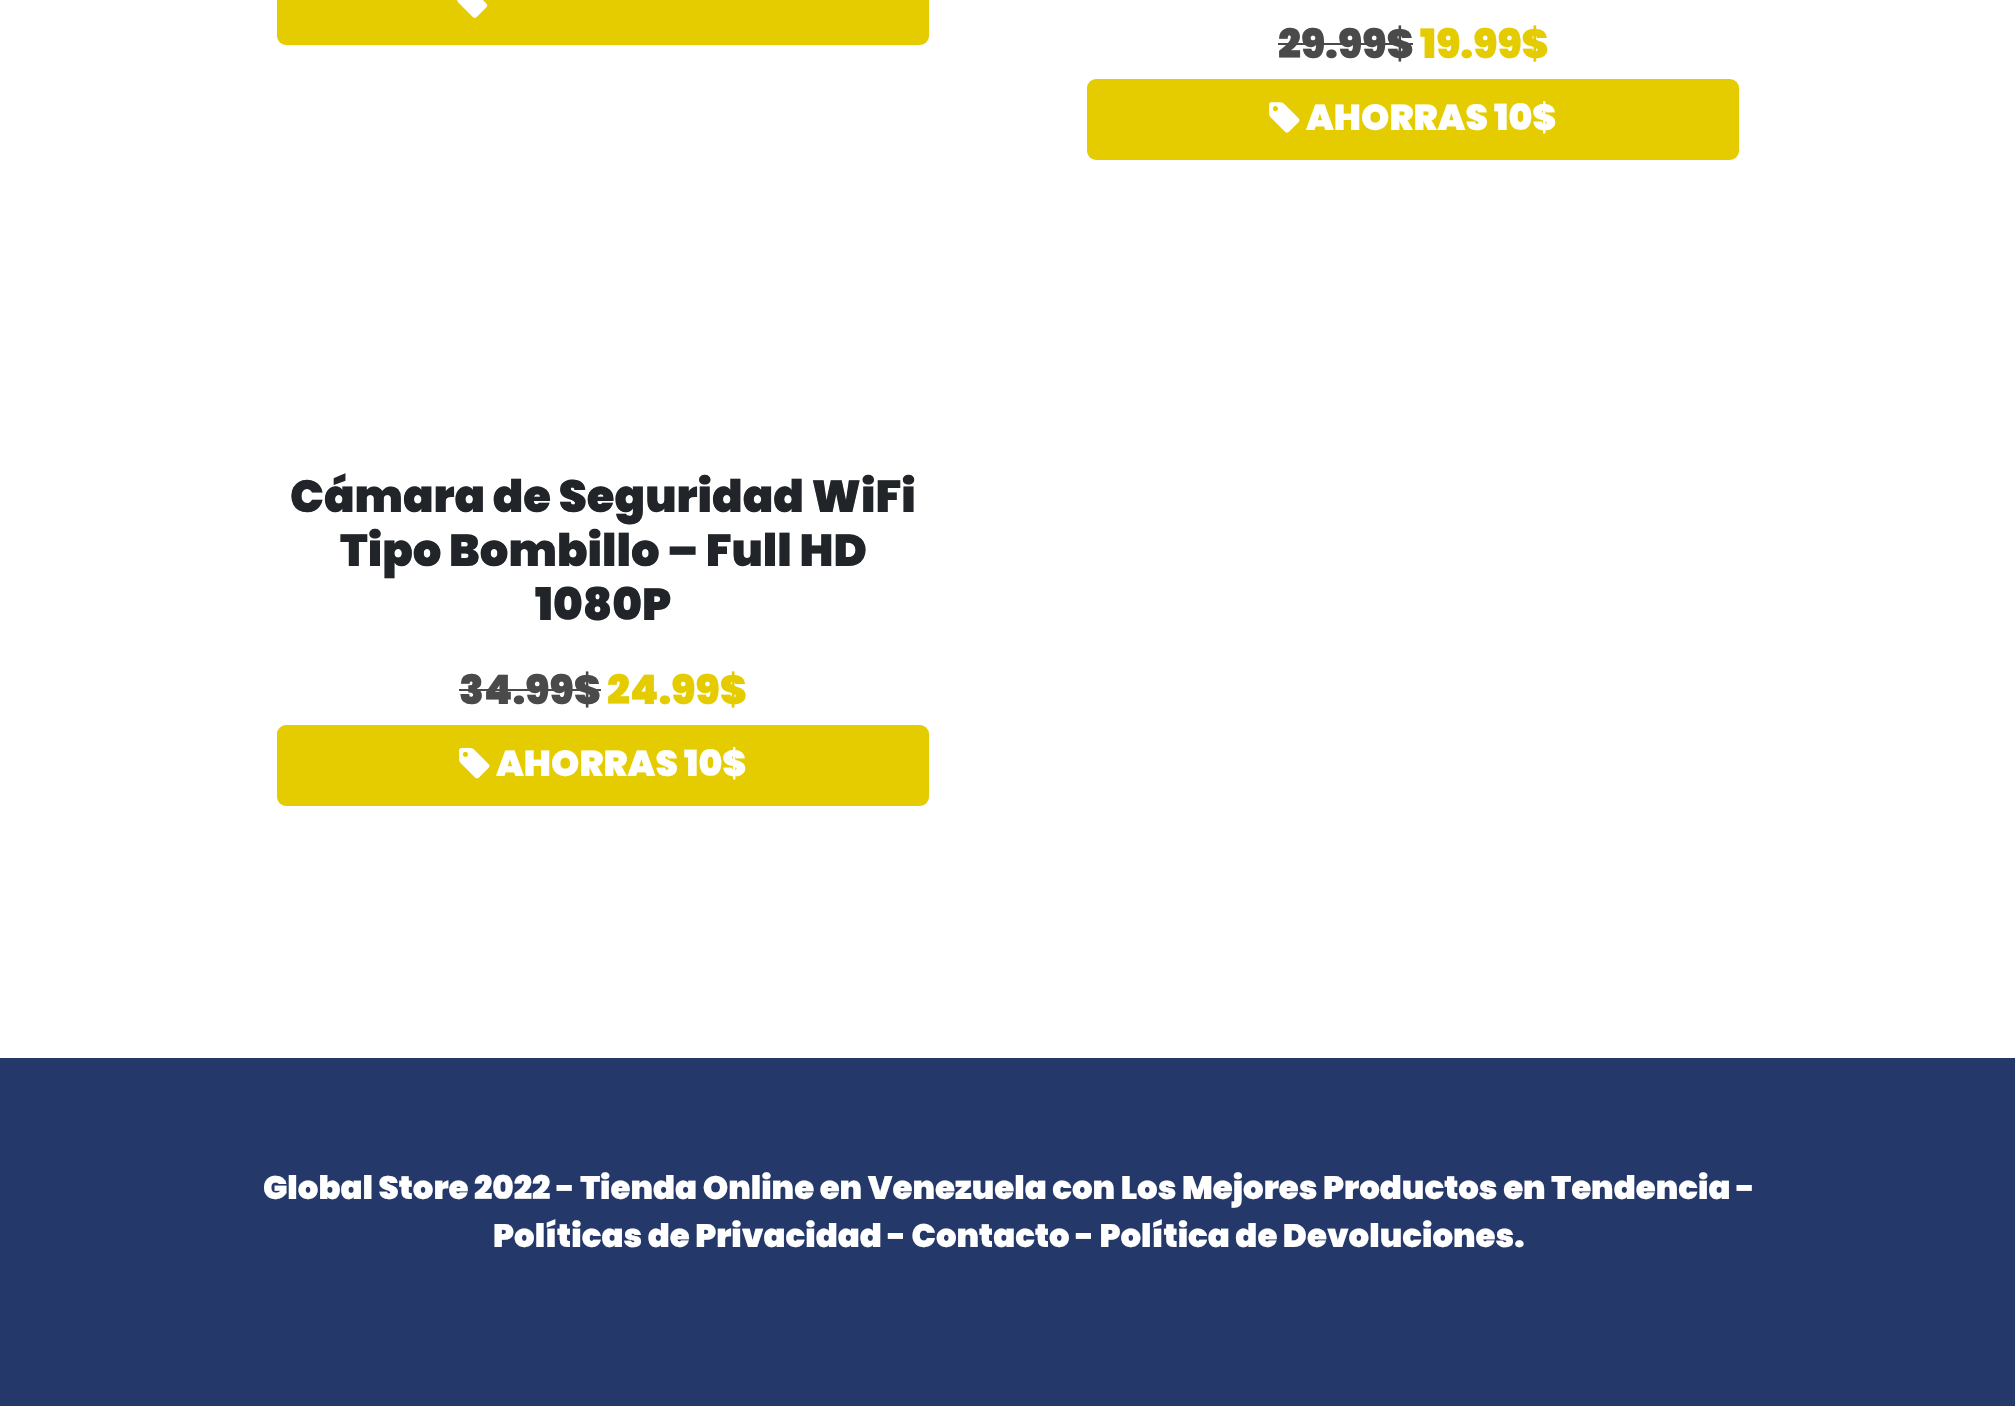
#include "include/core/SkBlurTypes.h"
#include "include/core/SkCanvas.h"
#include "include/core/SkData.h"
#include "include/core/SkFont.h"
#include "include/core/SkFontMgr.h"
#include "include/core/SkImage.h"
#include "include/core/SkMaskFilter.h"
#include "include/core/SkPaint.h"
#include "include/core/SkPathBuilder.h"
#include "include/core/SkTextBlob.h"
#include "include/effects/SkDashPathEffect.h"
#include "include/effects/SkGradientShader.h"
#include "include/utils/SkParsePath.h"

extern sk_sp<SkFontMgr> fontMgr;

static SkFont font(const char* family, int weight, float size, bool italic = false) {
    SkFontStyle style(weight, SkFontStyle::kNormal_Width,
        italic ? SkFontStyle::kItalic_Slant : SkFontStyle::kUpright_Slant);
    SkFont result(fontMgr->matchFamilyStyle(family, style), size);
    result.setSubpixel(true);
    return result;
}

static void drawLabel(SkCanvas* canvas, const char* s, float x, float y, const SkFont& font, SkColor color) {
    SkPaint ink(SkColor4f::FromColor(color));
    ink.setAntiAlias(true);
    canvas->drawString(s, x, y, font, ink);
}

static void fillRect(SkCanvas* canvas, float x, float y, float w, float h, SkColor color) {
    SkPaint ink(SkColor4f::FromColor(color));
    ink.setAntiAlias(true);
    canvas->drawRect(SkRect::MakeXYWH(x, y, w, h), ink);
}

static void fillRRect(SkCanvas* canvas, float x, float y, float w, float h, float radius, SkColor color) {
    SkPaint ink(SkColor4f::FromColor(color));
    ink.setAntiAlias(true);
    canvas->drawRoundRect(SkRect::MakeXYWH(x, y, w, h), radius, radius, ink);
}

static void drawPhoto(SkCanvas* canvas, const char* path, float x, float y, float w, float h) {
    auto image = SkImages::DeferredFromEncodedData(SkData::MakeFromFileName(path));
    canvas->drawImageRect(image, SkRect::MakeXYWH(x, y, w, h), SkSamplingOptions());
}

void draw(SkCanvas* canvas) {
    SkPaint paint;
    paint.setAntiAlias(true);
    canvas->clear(0xFFFFFFFF);
    fillRRect(canvas, 277, -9, 652, 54, 9, 0xFFE4CC00);
    drawPhoto(canvas, "assets/img1.png", 457, 0, 31, 18);
    SkFont font1 = font("Poppins", 900, 40.5f);
    drawLabel(canvas, "29.99$", 1278, 58, font1, 0xFF4A4A4A);
    fillRect(canvas, 1278, 43, 135, 2, 0xFF4A4A4A);
    drawLabel(canvas, "19.99$", 1420, 58, font1, 0xFFE4CC00);
    fillRRect(canvas, 1087, 79, 652, 81, 9, 0xFFE4CC00);
    drawPhoto(canvas, "assets/img2.png", 1269, 102, 31, 31);
    SkFont font2 = font("Poppins", 900, 36);
    drawLabel(canvas, "AHORRAS 10$", 1306, 130, font2, 0xFFFFFFFF);
    SkFont font3 = font("Poppins", 900, 45);
    drawLabel(canvas, "Cámara de Seguridad WiFi", 290, 512, font3, 0xFF212529);
    drawLabel(canvas, "Tipo Bombillo – Full HD", 340, 566, font3, 0xFF212529);
    drawLabel(canvas, "1080P", 535, 620, font3, 0xFF212529);
    drawLabel(canvas, "34.99$", 459, 704, font1, 0xFF4A4A4A);
    fillRect(canvas, 459, 689, 142, 2, 0xFF4A4A4A);
    drawLabel(canvas, "24.99$", 607, 704, font1, 0xFFE4CC00);
    fillRRect(canvas, 277, 725, 652, 81, 9, 0xFFE4CC00);
    drawPhoto(canvas, "assets/img3.png", 459, 747, 31, 32);
    drawLabel(canvas, "AHORRAS 10$", 496, 776, font2, 0xFFFFFFFF);
    fillRect(canvas, 0, 1058, 2015, 348, 0xFF243869);
    SkFont font4 = font("Poppins", 900, 32.4f);
    drawLabel(canvas, "Global Store 2022 - Tienda Online en Venezuela con Los Mejores Productos en Tendencia -", 263, 1199, font4, 0xFFFFFFFF);
    drawLabel(canvas, "Políticas de Privacidad - Contacto - Política de Devoluciones.", 493, 1247, font4, 0xFFFFFFFF);
}
